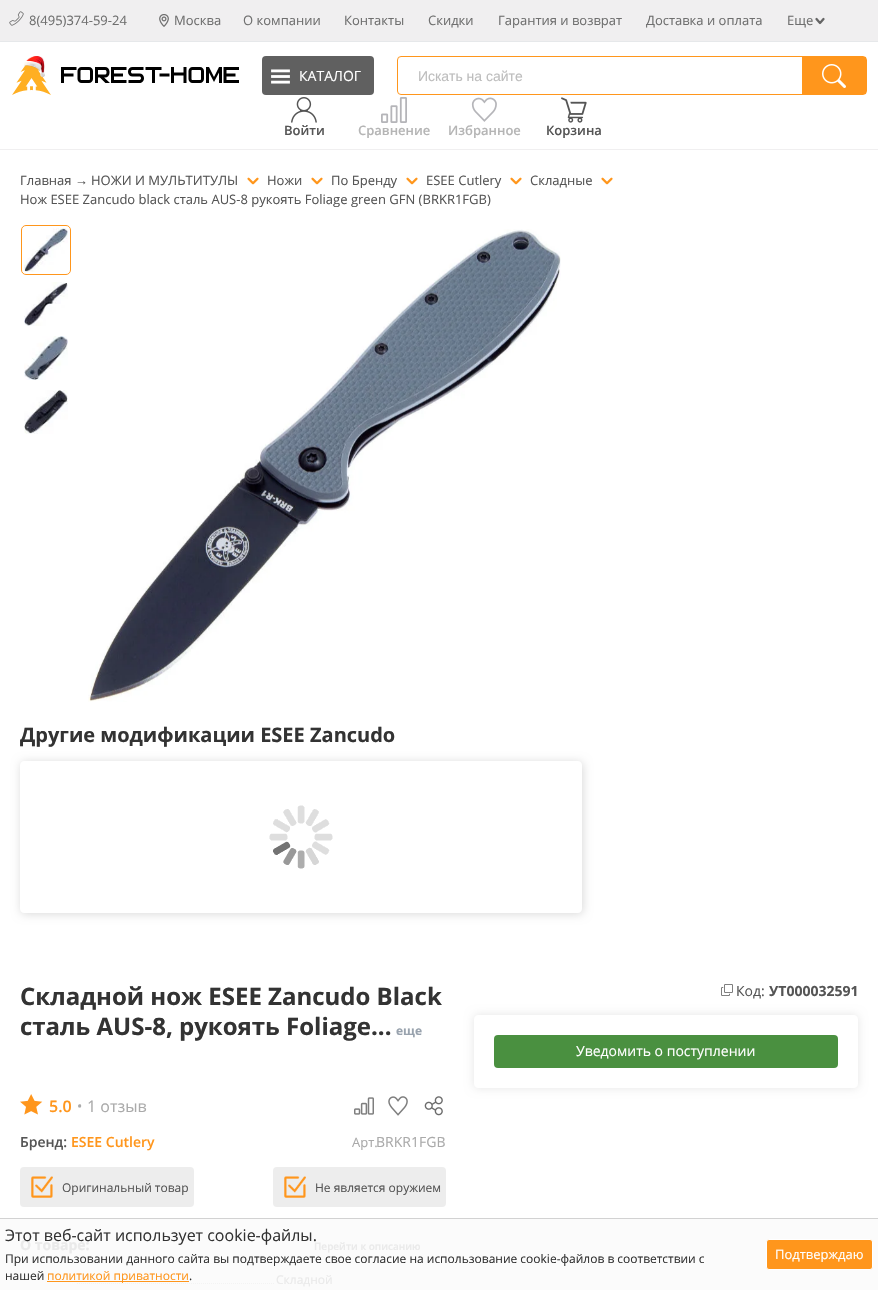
#include "include/core/SkBlurTypes.h"
#include "include/core/SkCanvas.h"
#include "include/core/SkData.h"
#include "include/core/SkFont.h"
#include "include/core/SkFontMgr.h"
#include "include/core/SkImage.h"
#include "include/core/SkMaskFilter.h"
#include "include/core/SkPaint.h"
#include "include/core/SkPathBuilder.h"
#include "include/core/SkTextBlob.h"
#include "include/effects/SkDashPathEffect.h"
#include "include/effects/SkGradientShader.h"
#include "include/utils/SkParsePath.h"

extern sk_sp<SkFontMgr> fontMgr;

static SkFont font(const char* family, int weight, float size, bool italic = false) {
    SkFontStyle style(weight, SkFontStyle::kNormal_Width,
        italic ? SkFontStyle::kItalic_Slant : SkFontStyle::kUpright_Slant);
    SkFont result(fontMgr->matchFamilyStyle(family, style), size);
    result.setSubpixel(true);
    return result;
}

static void drawLabel(SkCanvas* canvas, const char* s, float x, float y, const SkFont& font, SkColor color) {
    SkPaint ink(SkColor4f::FromColor(color));
    ink.setAntiAlias(true);
    canvas->drawString(s, x, y, font, ink);
}

static void fillRect(SkCanvas* canvas, float x, float y, float w, float h, SkColor color) {
    SkPaint ink(SkColor4f::FromColor(color));
    ink.setAntiAlias(true);
    canvas->drawRect(SkRect::MakeXYWH(x, y, w, h), ink);
}

static void fillRRect(SkCanvas* canvas, float x, float y, float w, float h, float radius, SkColor color) {
    SkPaint ink(SkColor4f::FromColor(color));
    ink.setAntiAlias(true);
    canvas->drawRoundRect(SkRect::MakeXYWH(x, y, w, h), radius, radius, ink);
}

static void drawPhoto(SkCanvas* canvas, const char* path, float x, float y, float w, float h) {
    auto image = SkImages::DeferredFromEncodedData(SkData::MakeFromFileName(path));
    canvas->drawImageRect(image, SkRect::MakeXYWH(x, y, w, h), SkSamplingOptions());
}

static SkPath parsePath(const char* data, bool evenOdd = false) {
    SkPath result = *SkParsePath::FromSVGString(data);
    if (evenOdd) result.setFillType(SkPathFillType::kEvenOdd);
    return result;
}

void draw(SkCanvas* canvas) {
    SkPaint paint;
    paint.setAntiAlias(true);
    canvas->clear(0xFFFFFFFF);
    fillRect(canvas, 0, 1219, 878, 71, 0xFFFBFBFB);
    fillRect(canvas, 0, 0, 878, 42, 0xFFF0EFF0);
    fillRRect(canvas, 0, 41, 878, 1, 0.5f, 0xFFE6E8EA);
    drawPhoto(canvas, "assets/img1.png", 9, 11, 15, 15);
    SkFont font1 = font("Open Sans", 400, 13);
    drawLabel(canvas, "8(495)374-59-24", 29, 25, font1, 0xFF6F6F6F);
    drawPhoto(canvas, "assets/img2.png", 159, 14, 10, 13);
    drawLabel(canvas, "Москва", 174, 25, font1, 0xFF6F6F6F);
    drawLabel(canvas, "О компании", 243, 25, font1, 0xFF6F6F6F);
    drawLabel(canvas, "Контакты", 344, 25, font1, 0xFF6F6F6F);
    drawLabel(canvas, "Скидки", 428, 25, font1, 0xFF6F6F6F);
    drawLabel(canvas, "Гарантия и возврат", 498, 25, font1, 0xFF6F6F6F);
    drawLabel(canvas, "Доставка и оплата", 646, 25, font1, 0xFF6F6F6F);
    drawLabel(canvas, "Еще", 787, 25, font1, 0xFF6F6F6F);
    paint.setStroke(true);
    paint.setStrokeWidth(2.3f);
    paint.setStrokeCap(SkPaint::kRound_Cap);
    paint.setStrokeJoin(SkPaint::kRound_Join);
    paint.setColor(0xFF656565);
    canvas->drawPath(parsePath("M816.5 19L820 23L823.5 19"), paint);
    fillRect(canvas, 0, 149, 878, 1, 0xFFF0EFF0);
    drawPhoto(canvas, "assets/img3.png", 12, 56, 227, 39);
    fillRRect(canvas, 262, 56, 112, 39, 4, 0xFF606060);
    drawPhoto(canvas, "assets/img4.png", 271, 69, 19, 15);
    SkFont font2 = font("Open Sans", 400, 14);
    drawLabel(canvas, "КАТАЛОГ", 299, 81, font2, 0xFFFFFFFF);
    paint.setStrokeWidth(1);
    paint.setStrokeCap(SkPaint::kButt_Cap);
    paint.setStrokeJoin(SkPaint::kMiter_Join);
    paint.setColor(0xFFFF961C);
    canvas->drawRoundRect(SkRect::MakeXYWH(397.5f, 56.5f, 469, 38), 3.5f, 3.5f, paint);
    SkFont font3 = font("Liberation Sans", 400, 14);
    drawLabel(canvas, "Искать на сайте", 418, 81, font3, 0xFFBDBDBD);
    fillRect(canvas, 802, 57, 64, 37, 0xFFFF961C);
    drawPhoto(canvas, "assets/img5.png", 822, 64, 24, 24);
    drawPhoto(canvas, "assets/img6.png", 291, 97, 26, 26);
    SkFont font4 = font("Open Sans", 600, 13);
    drawLabel(canvas, "Войти", 284, 135, font4, 0xFF555555);
    drawPhoto(canvas, "assets/img7.png", 381, 97, 26, 26);
    drawLabel(canvas, "Сравнение", 358, 135, font4, 0xFFB5B5B5);
    drawPhoto(canvas, "assets/img8.png", 471, 97, 26, 25);
    drawLabel(canvas, "Избранное", 448, 135, font4, 0xFFB5B5B5);
    drawPhoto(canvas, "assets/img9.png", 561, 97, 26, 26);
    drawLabel(canvas, "Корзина", 546, 135, font4, 0xFF555555);
    drawLabel(canvas, "Главная", 20, 185, font1, 0xFF555555);
    SkFont font5 = font("Liberation Sans", 400, 13);
    drawLabel(canvas, "→", 75, 185, font5, 0xFF555555);
    drawLabel(canvas, "НОЖИ И МУЛЬТИТУЛЫ", 91, 185, font1, 0xFF555555);
    drawPhoto(canvas, "assets/img10.png", 247, 177, 12, 8);
    drawLabel(canvas, "Ножи", 267, 185, font1, 0xFF555555);
    drawPhoto(canvas, "assets/img10.png", 311, 177, 12, 8);
    drawLabel(canvas, "По Бренду", 331, 185, font1, 0xFF555555);
    drawPhoto(canvas, "assets/img10.png", 406, 177, 12, 8);
    drawLabel(canvas, "ESEE Cutlery", 426, 185, font1, 0xFF555555);
    drawPhoto(canvas, "assets/img10.png", 510, 177, 12, 8);
    drawLabel(canvas, "Складные", 530, 185, font1, 0xFF555555);
    drawPhoto(canvas, "assets/img10.png", 601, 177, 12, 8);
    drawLabel(canvas, "Нож ESEE Zancudo black сталь AUS-8 рукоять Foliage green GFN (BRKR1FGB)", 20, 204, font1, 0xFF555555);
    drawPhoto(canvas, "assets/img11.png", 24, 228, 44, 44);
    canvas->drawRoundRect(SkRect::MakeXYWH(21.5f, 225.5f, 49, 49), 4.5f, 4.5f, paint);
    drawPhoto(canvas, "assets/img12.png", 24, 282, 44, 44);
    drawPhoto(canvas, "assets/img13.png", 24, 336, 44, 44);
    drawPhoto(canvas, "assets/img14.png", 24, 390, 44, 44);
    drawPhoto(canvas, "assets/img15.png", 88, 229, 473, 473);
    SkFont font6 = font("Open Sans", 700, 20);
    drawLabel(canvas, "Другие модификации ESEE Zancudo", 20, 742, font6, 0xFF333333);
    canvas->save();
    canvas->clipPath(parsePath("M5 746H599V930H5ZM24 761H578C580 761 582 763 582 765V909C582 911 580 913 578 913H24C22 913 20 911 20 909V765C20 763 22 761 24 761Z", true), true);
    paint.setStroke(false);
    paint.setColor(0x26000000);
    paint.setMaskFilter(SkMaskFilter::MakeBlur(kNormal_SkBlurStyle, 5));
    canvas->drawRoundRect(SkRect::MakeXYWH(21, 762, 562, 152), 4, 4, paint);
    paint.setMaskFilter(nullptr);
    canvas->restore();
    drawPhoto(canvas, "assets/img16.png", 269, 805, 64, 64);
    SkFont font7 = font("Open Sans", 700, 24);
    drawLabel(canvas, "Складной нож ESEE Zancudo Black", 20, 1005, font7, 0xFF333333);
    drawLabel(canvas, "сталь AUS-8, рукоять Foliage...", 20, 1035, font7, 0xFF333333);
    SkFont font8 = font("Open Sans", 700, 12);
    drawLabel(canvas, "еще", 396, 1035, font8, 0xFF99A3AE);
    drawPhoto(canvas, "assets/img17.png", 20, 1094, 23, 21);
    SkFont font9 = font("Open Sans", 600, 16);
    drawLabel(canvas, "5.0", 49, 1112, font9, 0xFFFF961C);
    drawLabel(canvas, "•", 77, 1111, font2, 0xFFAAAAAA);
    SkFont font10 = font("Open Sans", 400, 16);
    drawLabel(canvas, "1 отзыв", 87, 1112, font10, 0xFFAAAAAA);
    drawPhoto(canvas, "assets/img18.png", 354, 1097, 20, 18);
    drawPhoto(canvas, "assets/img19.png", 388, 1096, 20, 20);
    drawPhoto(canvas, "assets/img20.png", 424, 1096, 19, 20);
    SkFont font11 = font("Open Sans", 600, 14);
    drawLabel(canvas, "Бренд:", 20, 1147, font11, 0xFF555555);
    drawLabel(canvas, "ESEE Cutlery", 71, 1147, font11, 0xFFFF961C);
    drawLabel(canvas, "Арт.", 352, 1147, font1, 0xFFAAAAAA);
    drawLabel(canvas, "BRKR1FGB", 376, 1147, font2, 0xFFAAAAAA);
    fillRRect(canvas, 20, 1167, 174, 40, 4, 0xFFEDEDED);
    drawPhoto(canvas, "assets/img21.png", 31, 1176, 22, 22);
    SkFont font12 = font("Open Sans", 400, 12);
    drawLabel(canvas, "Оригинальный товар", 62, 1192, font12, 0xFF555555);
    fillRRect(canvas, 273, 1167, 173, 40, 4, 0xFFEDEDED);
    drawPhoto(canvas, "assets/img21.png", 284, 1176, 22, 22);
    drawLabel(canvas, "Не является оружием", 315, 1192, font12, 0xFF555555);
    SkFont font13 = font("Open Sans", 700, 14);
    drawLabel(canvas, "О товаре:", 20, 1250, font13, 0xFFEAEAEA);
    SkFont font14 = font("Open Sans", 600, 10);
    drawLabel(canvas, "Перейти к описанию", 314, 1250, font14, 0xFFEAEAEA);
    paint.setStroke(true);
    paint.setColor(0xFFF3F3F3);
    paint.setPathEffect(SkDashPathEffect::Make({{1, 1}}, 0));
    canvas->drawPath(parsePath("M77 1283.5H274"), paint);
    paint.setPathEffect(nullptr);
    drawLabel(canvas, "Складной", 276, 1284, font12, 0xFFEAEAEA);
    drawPhoto(canvas, "assets/img22.png", 721, 984, 12, 12);
    drawLabel(canvas, "Код:", 736, 996, font2, 0xFF555555);
    drawLabel(canvas, "УТ000032591", 769, 996, font13, 0xFF555555);
    canvas->save();
    canvas->clipPath(parsePath("M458 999H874V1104H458ZM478 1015H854C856 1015 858 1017 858 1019V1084C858 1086 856 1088 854 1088H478C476 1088 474 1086 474 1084V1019C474 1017 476 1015 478 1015Z", true), true);
    paint.setStroke(false);
    paint.setColor(0x1A000000);
    paint.setMaskFilter(SkMaskFilter::MakeBlur(kNormal_SkBlurStyle, 5));
    canvas->drawRoundRect(SkRect::MakeXYWH(474, 1015, 384, 73), 4, 4, paint);
    paint.setMaskFilter(nullptr);
    canvas->restore();
    fillRRect(canvas, 494, 1035, 344, 33, 4, 0xFF4A9040);
    drawLabel(canvas, "Уведомить о поступлении", 576, 1056, font2, 0xFFFFFFFF);
    fillRect(canvas, 0, 1218, 878, 1, 0xFFD2D2D2);
    drawLabel(canvas, "Этот веб-сайт использует cookie-файлы.", 5, 1241, font10, 0xFF333333);
    drawLabel(canvas, "При использовании данного сайта вы подтверждаете свое согласие на использование cookie-файлов в соответствии с", 5, 1263, font12, 0xFF333333);
    drawLabel(canvas, "нашей", 5, 1280, font12, 0xFF333333);
    fillRect(canvas, 47, 1281, 142, 1, 0xFFFF961C);
    drawLabel(canvas, "политикой приватности", 47, 1280, font12, 0xFFFF961C);
    drawLabel(canvas, ".", 189, 1280, font12, 0xFF333333);
    paint.setColor(0xFFFF961C);
    canvas->drawRoundRect(SkRect::MakeXYWH(766.5f, 1239.5f, 106, 30), 2.5f, 2.5f, paint);
    paint.setStroke(true);
    paint.setColor(0xFFFFFFFF);
    canvas->drawRoundRect(SkRect::MakeXYWH(766.5f, 1239.5f, 106, 30), 2.5f, 2.5f, paint);
    drawLabel(canvas, "Подтверждаю", 775, 1259, font1, 0xFFFFFFFF);
}
